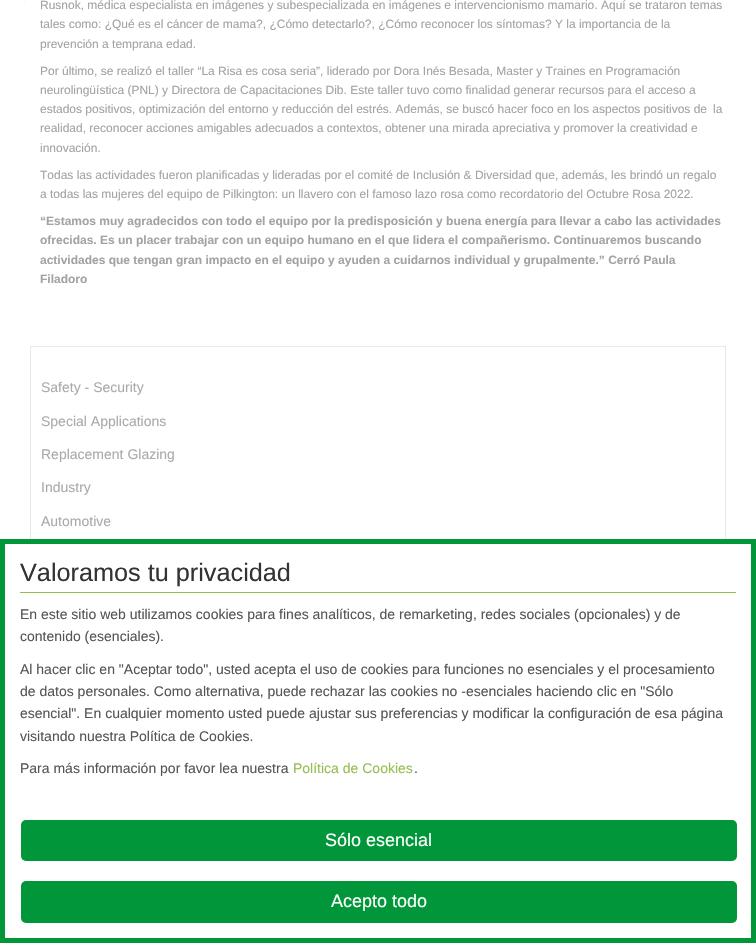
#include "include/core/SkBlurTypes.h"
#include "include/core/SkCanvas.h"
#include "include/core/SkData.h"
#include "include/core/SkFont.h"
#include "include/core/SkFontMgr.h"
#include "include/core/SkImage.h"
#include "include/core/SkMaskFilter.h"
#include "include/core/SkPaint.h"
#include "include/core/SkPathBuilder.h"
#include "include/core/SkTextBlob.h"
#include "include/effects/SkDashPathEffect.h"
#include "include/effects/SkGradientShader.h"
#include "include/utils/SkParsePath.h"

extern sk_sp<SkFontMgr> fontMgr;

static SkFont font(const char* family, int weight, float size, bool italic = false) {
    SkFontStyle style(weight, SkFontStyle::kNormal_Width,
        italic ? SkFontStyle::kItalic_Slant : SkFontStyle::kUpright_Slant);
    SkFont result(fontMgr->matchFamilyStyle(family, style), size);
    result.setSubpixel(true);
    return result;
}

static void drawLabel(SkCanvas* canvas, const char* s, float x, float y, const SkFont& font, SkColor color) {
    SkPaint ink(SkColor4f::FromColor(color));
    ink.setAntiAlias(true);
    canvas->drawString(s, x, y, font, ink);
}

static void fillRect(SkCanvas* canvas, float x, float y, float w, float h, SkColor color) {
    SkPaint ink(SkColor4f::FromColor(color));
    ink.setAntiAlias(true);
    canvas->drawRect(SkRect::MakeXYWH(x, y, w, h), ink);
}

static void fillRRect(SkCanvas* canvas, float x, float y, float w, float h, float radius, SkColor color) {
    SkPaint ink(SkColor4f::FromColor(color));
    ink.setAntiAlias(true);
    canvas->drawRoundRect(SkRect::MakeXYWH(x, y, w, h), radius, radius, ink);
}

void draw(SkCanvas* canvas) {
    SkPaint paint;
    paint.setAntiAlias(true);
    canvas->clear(0xFFFFFFFF);
    fillRect(canvas, 23, 0, 3, 4, 0xFFFCFCFC);
    SkFont font1 = font("Liberation Sans", 400, 12);
    drawLabel(canvas, "Rusnok, médica especialista en imágenes y subespecializada en imágenes e intervencionismo mamario. Aquí se trataron temas", 40, 9, font1, 0xFFA3A3A3);
    drawLabel(canvas, "tales como: ¿Qué es el cáncer de mama?, ¿Cómo detectarlo?, ¿Cómo reconocer los síntomas? Y la importancia de la", 40, 28, font1, 0xFFA3A3A3);
    drawLabel(canvas, "prevención a temprana edad.", 40, 48, font1, 0xFFA3A3A3);
    drawLabel(canvas, "Por último, se realizó el taller “La Risa es cosa seria”, liderado por Dora Inés Besada, Master y Traines en Programación", 40, 75, font1, 0xFFA3A3A3);
    drawLabel(canvas, "neurolingüística (PNL) y Directora de Capacitaciones Dib. Este taller tuvo como finalidad generar recursos para el acceso a", 40, 94, font1, 0xFFA3A3A3);
    drawLabel(canvas, "estados positivos, optimización del entorno y reducción del estrés. Además, se buscó hacer foco en los aspectos positivos de", 40, 113, font1, 0xFFA3A3A3);
    drawLabel(canvas, "la", 713, 113, font1, 0xFFA3A3A3);
    drawLabel(canvas, "realidad, reconocer acciones amigables adecuados a contextos, obtener una mirada apreciativa y promover la creatividad e", 40, 132, font1, 0xFFA3A3A3);
    drawLabel(canvas, "innovación.", 40, 152, font1, 0xFFA3A3A3);
    drawLabel(canvas, "Todas las actividades fueron planificadas y lideradas por el comité de Inclusión & Diversidad que, además, les brindó un regalo", 40, 179, font1, 0xFFA3A3A3);
    drawLabel(canvas, "a todas las mujeres del equipo de Pilkington: un llavero con el famoso lazo rosa como recordatorio del Octubre Rosa 2022.", 40, 198, font1, 0xFFA3A3A3);
    SkFont font2 = font("Liberation Sans", 700, 12);
    drawLabel(canvas, "“Estamos muy agradecidos con todo el equipo por la predisposición y buena energía para llevar a cabo las actividades", 40, 225, font2, 0xFFA3A3A3);
    drawLabel(canvas, "ofrecidas. Es un placer trabajar con un equipo humano en el que lidera el compañerismo. Continuaremos buscando", 40, 244, font2, 0xFFA3A3A3);
    drawLabel(canvas, "actividades que tengan gran impacto en el equipo y ayuden a cuidarnos individual y grupalmente.” Cerró Paula", 40, 264, font2, 0xFFA3A3A3);
    drawLabel(canvas, "Filadoro", 40, 283, font2, 0xFFA3A3A3);
    paint.setStroke(true);
    paint.setStrokeWidth(1);
    paint.setColor(0xFFE9E9E9);
    canvas->drawRect(SkRect::MakeXYWH(30.5f, 346.5f, 695, 213), paint);
    SkFont font3 = font("Liberation Sans", 400, 14);
    drawLabel(canvas, "Safety - Security", 41, 392, font3, 0xFFA9ABAB);
    drawLabel(canvas, "Special Applications", 41, 426, font3, 0xFFA9ABAB);
    drawLabel(canvas, "Replacement Glazing", 41, 459, font3, 0xFFA9ABAB);
    drawLabel(canvas, "Industry", 41, 492, font3, 0xFFA9ABAB);
    drawLabel(canvas, "Automotive", 41, 526, font3, 0xFFA9ABAB);
    fillRect(canvas, 30, 544, 696, 16, 0xFFFFFFFF);
    paint.setStrokeWidth(5);
    paint.setColor(0xFF009639);
    canvas->drawRect(SkRect::MakeXYWH(2.5f, 541.5f, 751, 399), paint);
    fillRect(canvas, 20, 592, 716, 1, 0xFF94BE52);
    SkFont font4 = font("Liberation Sans", 400, 25.25f);
    drawLabel(canvas, "Valoramos tu privacidad", 20, 581, font4, 0xFF333333);
    drawLabel(canvas, "En este sitio web utilizamos cookies para fines analíticos, de remarketing, redes sociales (opcionales) y de", 20, 619, font3, 0xFF555555);
    drawLabel(canvas, "contenido (esenciales).", 20, 641, font3, 0xFF555555);
    drawLabel(canvas, "Al hacer clic en \"Aceptar todo\", usted acepta el uso de cookies para funciones no esenciales y el procesamiento", 20, 674, font3, 0xFF555555);
    drawLabel(canvas, "de datos personales. Como alternativa, puede rechazar las cookies no -esenciales haciendo clic en \"Sólo", 20, 696, font3, 0xFF555555);
    drawLabel(canvas, "esencial\". En cualquier momento usted puede ajustar sus preferencias y modificar la configuración de esa página", 20, 718, font3, 0xFF555555);
    drawLabel(canvas, "visitando nuestra Política de Cookies.", 20, 741, font3, 0xFF555555);
    drawLabel(canvas, "Para más información por favor lea nuestra", 20, 773, font3, 0xFF555555);
    drawLabel(canvas, "Política de Cookies", 293, 773, font3, 0xFF94BE52);
    drawLabel(canvas, ".", 414, 773, font3, 0xFF555555);
    fillRRect(canvas, 21, 820, 716, 41, 5, 0xFF009639);
    SkFont font5 = font("Liberation Sans", 400, 18);
    drawLabel(canvas, "Sólo esencial", 325, 846, font5, 0xFFFFFFFF);
    fillRRect(canvas, 21, 881, 716, 42, 5, 0xFF009639);
    drawLabel(canvas, "Acepto todo", 331, 907, font5, 0xFFFFFFFF);
}
